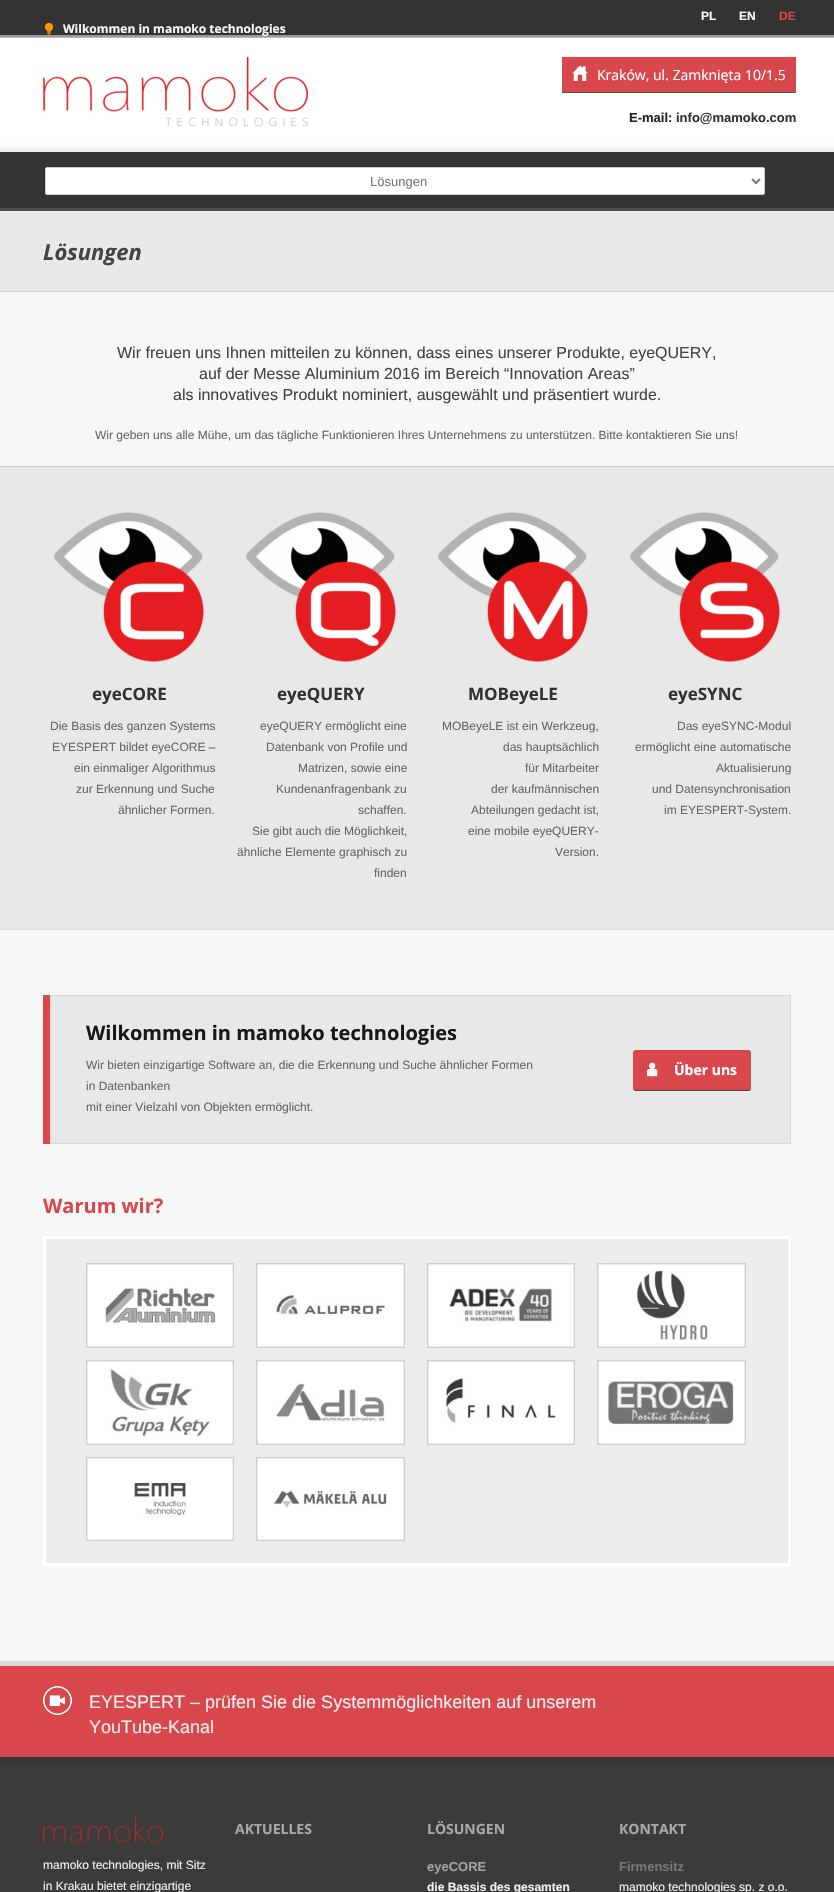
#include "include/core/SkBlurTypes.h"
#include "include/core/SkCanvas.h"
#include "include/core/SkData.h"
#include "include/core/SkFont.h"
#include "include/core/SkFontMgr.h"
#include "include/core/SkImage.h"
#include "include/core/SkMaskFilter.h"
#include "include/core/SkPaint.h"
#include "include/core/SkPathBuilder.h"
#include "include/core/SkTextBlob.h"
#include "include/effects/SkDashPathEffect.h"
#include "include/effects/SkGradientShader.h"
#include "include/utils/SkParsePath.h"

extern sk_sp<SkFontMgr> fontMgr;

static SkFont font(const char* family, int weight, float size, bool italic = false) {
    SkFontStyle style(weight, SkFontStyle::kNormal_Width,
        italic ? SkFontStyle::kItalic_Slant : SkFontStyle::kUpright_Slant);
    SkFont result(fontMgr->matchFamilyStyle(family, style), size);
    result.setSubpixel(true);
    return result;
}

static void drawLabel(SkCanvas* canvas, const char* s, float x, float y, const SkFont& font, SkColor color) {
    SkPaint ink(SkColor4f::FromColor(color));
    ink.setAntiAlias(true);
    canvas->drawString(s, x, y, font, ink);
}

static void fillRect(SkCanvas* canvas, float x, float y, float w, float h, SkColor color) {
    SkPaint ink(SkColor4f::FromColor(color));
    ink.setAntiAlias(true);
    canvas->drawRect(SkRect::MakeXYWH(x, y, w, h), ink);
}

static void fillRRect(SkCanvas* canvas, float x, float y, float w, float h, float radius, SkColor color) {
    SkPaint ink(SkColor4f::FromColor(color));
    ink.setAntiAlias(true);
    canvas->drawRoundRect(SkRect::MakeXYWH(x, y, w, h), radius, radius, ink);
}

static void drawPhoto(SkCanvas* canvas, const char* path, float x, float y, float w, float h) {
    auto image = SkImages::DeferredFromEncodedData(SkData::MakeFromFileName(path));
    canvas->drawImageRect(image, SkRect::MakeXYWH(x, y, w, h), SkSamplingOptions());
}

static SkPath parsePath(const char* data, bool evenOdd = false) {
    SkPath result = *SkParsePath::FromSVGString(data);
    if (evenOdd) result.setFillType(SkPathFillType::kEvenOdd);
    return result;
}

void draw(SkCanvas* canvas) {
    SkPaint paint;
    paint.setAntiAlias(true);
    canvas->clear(0xFFFFFFFF);
    fillRect(canvas, 0, 37, 834, 1, 0xFFBBBBBB);
    fillRect(canvas, 0, 0, 834, 35, 0xFF333333);
    fillRect(canvas, 0, 35, 834, 2, 0xFF999999);
    SkFont font1 = font("Liberation Sans", 700, 12);
    drawLabel(canvas, "PL", 701, 20, font1, 0xFFF7F7F7);
    drawLabel(canvas, "EN", 739, 20, font1, 0xFFF7F7F7);
    drawLabel(canvas, "DE", 779, 20, font1, 0xFFD7474C);
    drawPhoto(canvas, "assets/img1.png", 45, 23, 8, 12);
    SkFont font2 = font("Open Sans", 700, 12);
    drawLabel(canvas, "Wilkommen in mamoko technologies", 63, 33, font2, 0xFFF7F7F7);
    drawPhoto(canvas, "assets/img2.png", 43, 57, 265, 69);
    fillRect(canvas, 562, 57, 234, 35, 0xFFD7474C);
    fillRect(canvas, 562, 92, 234, 1, 0xFF555555);
    drawPhoto(canvas, "assets/img3.png", 572, 65, 16, 16);
    SkFont font3 = font("Open Sans", 400, 14);
    drawLabel(canvas, "Kraków, ul. Zamknięta 10/1.5", 597, 80, font3, 0xFFFFFFFF);
    SkFont font4 = font("Liberation Sans", 700, 13);
    drawLabel(canvas, "E-mail:", 629, 122, font4, 0xFF222222);
    drawLabel(canvas, "info@mamoko.com", 676, 122, font4, 0xFF333333);
    paint.setColor(0x26000000);
    paint.setMaskFilter(SkMaskFilter::MakeBlur(kNormal_SkBlurStyle, 5));
    canvas->drawRect(SkRect::MakeXYWH(-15, 152, 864, 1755), paint);
    paint.setMaskFilter(nullptr);
    fillRect(canvas, 0, 152, 834, 56, 0xFF333333);
    fillRect(canvas, 0, 208, 834, 3, 0xFF4D4D4D);
    paint.setColor(0xFFFFFFFF);
    canvas->drawRoundRect(SkRect::MakeXYWH(45.5f, 167.5f, 719, 27), 1.5f, 1.5f, paint);
    paint.setStroke(true);
    paint.setStrokeWidth(1);
    paint.setColor(0xFFCCCCCC);
    canvas->drawRoundRect(SkRect::MakeXYWH(45.5f, 167.5f, 719, 27), 1.5f, 1.5f, paint);
    paint.setStrokeWidth(2);
    paint.setColor(0xFF777777);
    canvas->drawPath(parsePath("M752 179L756 183L760 179"), paint);
    SkFont font5 = font("Liberation Sans", 400, 13);
    drawLabel(canvas, "Lösungen", 370, 186, font5, 0xFF777777);
    fillRect(canvas, 0, 292, 834, 1369, 0xFFF7F7F7);
    fillRect(canvas, 0, 211, 834, 80, 0xFFE9E9E9);
    fillRect(canvas, 0, 291, 834, 1, 0xFFD0D0D0);
    SkFont font6 = font("Open Sans", 700, 22, true);
    drawLabel(canvas, "Lösungen", 43, 260, font6, 0xFF444444);
    SkFont font7 = font("Liberation Sans", 400, 16);
    drawLabel(canvas, "Wir freuen uns Ihnen mitteilen zu können, dass eines unserer Produkte, eyeQUERY,", 117, 358, font7, 0xFF444444);
    drawLabel(canvas, "auf der Messe Aluminium 2016 im Bereich “Innovation Areas”", 199, 379, font7, 0xFF444444);
    drawLabel(canvas, "als innovatives Produkt nominiert, ausgewählt und präsentiert wurde.", 173, 400, font7, 0xFF444444);
    SkFont font8 = font("Liberation Sans", 400, 12);
    drawLabel(canvas, "Wir geben uns alle Mühe, um das tägliche Funktionieren Ihres Unternehmens zu unterstützen. Bitte kontaktieren Sie uns!", 95, 439, font8, 0xFF666666);
    fillRect(canvas, 0, 467, 834, 462, 0xFFE8E8E8);
    fillRect(canvas, 0, 466, 834, 1, 0xFFCCCCCC);
    fillRect(canvas, 0, 929, 834, 1, 0xFFDDDDDD);
    drawPhoto(canvas, "assets/img4.png", 54, 512, 150, 150);
    SkFont font9 = font("Open Sans", 700, 17);
    drawLabel(canvas, "eyeCORE", 92, 700, font9, 0xFF333333);
    drawLabel(canvas, "Die Basis des ganzen Systems", 50, 730, font8, 0xFF666666);
    drawLabel(canvas, "EYESPERT bildet eyeCORE –", 52, 751, font8, 0xFF666666);
    drawLabel(canvas, "ein einmaliger Algorithmus", 74, 772, font8, 0xFF666666);
    drawLabel(canvas, "zur Erkennung und Suche", 76, 793, font8, 0xFF666666);
    drawLabel(canvas, "ähnlicher Formen.", 118, 814, font8, 0xFF666666);
    drawPhoto(canvas, "assets/img5.png", 246, 512, 150, 150);
    drawLabel(canvas, "eyeQUERY", 277, 700, font9, 0xFF333333);
    drawLabel(canvas, "eyeQUERY ermöglicht eine", 260, 730, font8, 0xFF666666);
    drawLabel(canvas, "Datenbank von Profile und", 266, 751, font8, 0xFF666666);
    drawLabel(canvas, "Matrizen, sowie eine", 298, 772, font8, 0xFF666666);
    drawLabel(canvas, "Kundenanfragenbank zu", 276, 793, font8, 0xFF666666);
    drawLabel(canvas, "schaffen.", 358, 814, font8, 0xFF666666);
    drawLabel(canvas, "Sie gibt auch die Möglichkeit,", 252, 835, font8, 0xFF666666);
    drawLabel(canvas, "ähnliche Elemente graphisch zu", 237, 856, font8, 0xFF666666);
    drawLabel(canvas, "finden", 374, 877, font8, 0xFF666666);
    drawPhoto(canvas, "assets/img6.png", 438, 512, 150, 150);
    drawLabel(canvas, "MOBeyeLE", 468, 700, font9, 0xFF333333);
    drawLabel(canvas, "MOBeyeLE ist ein Werkzeug,", 442, 730, font8, 0xFF666666);
    drawLabel(canvas, "das hauptsächlich", 503, 751, font8, 0xFF666666);
    drawLabel(canvas, "für Mitarbeiter", 525, 772, font8, 0xFF666666);
    drawLabel(canvas, "der kaufmännischen", 491, 793, font8, 0xFF666666);
    drawLabel(canvas, "Abteilungen gedacht ist,", 471, 814, font8, 0xFF666666);
    drawLabel(canvas, "eine mobile eyeQUERY-", 468, 835, font8, 0xFF666666);
    drawLabel(canvas, "Version.", 555, 856, font8, 0xFF666666);
    drawPhoto(canvas, "assets/img7.png", 630, 512, 150, 150);
    drawLabel(canvas, "eyeSYNC", 668, 700, font9, 0xFF333333);
    drawLabel(canvas, "Das eyeSYNC-Modul", 677, 730, font8, 0xFF666666);
    drawLabel(canvas, "ermöglicht eine automatische", 635, 751, font8, 0xFF666666);
    drawLabel(canvas, "Aktualisierung", 716, 772, font8, 0xFF666666);
    drawLabel(canvas, "und Datensynchronisation", 652, 793, font8, 0xFF666666);
    drawLabel(canvas, "im EYESPERT-System.", 664, 814, font8, 0xFF666666);
    fillRect(canvas, 43, 995, 7, 149, 0xFFD7474C);
    paint.setStroke(false);
    paint.setColor(0xFFE8E8E8);
    canvas->drawRect(SkRect::MakeXYWH(50.5f, 995.5f, 740, 148), paint);
    paint.setStroke(true);
    paint.setStrokeWidth(1);
    paint.setColor(0xFFD9D9D9);
    canvas->drawRect(SkRect::MakeXYWH(50.5f, 995.5f, 740, 148), paint);
    SkFont font10 = font("Open Sans", 700, 20);
    drawLabel(canvas, "Wilkommen in mamoko technologies", 86, 1040, font10, 0xFF181818);
    drawLabel(canvas, "Wir bieten einzigartige Software an, die die Erkennung und Suche ähnlicher Formen", 86, 1069, font8, 0xFF666666);
    drawLabel(canvas, "in Datenbanken", 86, 1090, font8, 0xFF666666);
    drawLabel(canvas, "mit einer Vielzahl von Objekten ermöglicht.", 86, 1111, font8, 0xFF666666);
    fillRRect(canvas, 633, 1050, 118, 41, 3, 0xFFD7474C);
    fillRect(canvas, 635, 1090, 115, 1, 0xFF444444);
    drawPhoto(canvas, "assets/img8.png", 647, 1062, 11, 15);
    SkFont font11 = font("Open Sans", 700, 14);
    drawLabel(canvas, "Über uns", 674, 1075, font11, 0xFFFFFFFF);
    drawLabel(canvas, "Warum wir?", 43, 1213, font10, 0xFFD7474C);
    paint.setStroke(false);
    paint.setColor(0xFFEEECEC);
    canvas->drawRect(SkRect::MakeXYWH(44.5f, 1237.5f, 745, 327), paint);
    paint.setStroke(true);
    paint.setStrokeWidth(3);
    paint.setColor(0xFFFFFFFF);
    canvas->drawRect(SkRect::MakeXYWH(44.5f, 1237.5f, 745, 327), paint);
    drawPhoto(canvas, "assets/img9.png", 86, 1263, 148, 85);
    drawPhoto(canvas, "assets/img10.png", 256, 1263, 149, 85);
    drawPhoto(canvas, "assets/img11.png", 427, 1263, 148, 85);
    drawPhoto(canvas, "assets/img12.png", 597, 1263, 149, 85);
    drawPhoto(canvas, "assets/img13.png", 86, 1360, 148, 85);
    drawPhoto(canvas, "assets/img14.png", 256, 1360, 149, 85);
    drawPhoto(canvas, "assets/img15.png", 427, 1360, 148, 85);
    drawPhoto(canvas, "assets/img16.png", 597, 1360, 149, 85);
    drawPhoto(canvas, "assets/img17.png", 86, 1457, 148, 84);
    drawPhoto(canvas, "assets/img18.png", 256, 1457, 149, 84);
    fillRect(canvas, 0, 1757, 834, 135, 0xFF3B3B3B);
    fillRect(canvas, 0, 1661, 834, 5, 0xFFDEDEDE);
    paint.setStroke(false);
    paint.setColor(0xBF323232);
    paint.setMaskFilter(SkMaskFilter::MakeBlur(kNormal_SkBlurStyle, 4.5f));
    canvas->drawRect(SkRect::MakeXYWH(-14, 1672, 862, 91), paint);
    paint.setMaskFilter(nullptr);
    fillRect(canvas, 0, 1666, 834, 91, 0xFFD7474C);
    drawPhoto(canvas, "assets/img19.png", 43, 1686, 29, 29);
    SkFont font12 = font("Liberation Sans", 400, 18);
    drawLabel(canvas, "EYESPERT – prüfen Sie die Systemmöglichkeiten auf unserem", 89, 1708, font12, 0xFFEEEEEE);
    drawLabel(canvas, "YouTube-Kanal", 89, 1733, font12, 0xFFEEEEEE);
    drawPhoto(canvas, "assets/img20.png", 43, 1817, 120, 26);
    drawLabel(canvas, "mamoko technologies, mit Sitz", 43, 1869, font8, 0xFFEEEEEE);
    drawLabel(canvas, "in Krakau bietet einzigartige", 43, 1890, font8, 0xFFEEEEEE);
    drawLabel(canvas, "AKTUELLES", 235, 1834, font11, 0xFFA8A8A8);
    drawLabel(canvas, "LÖSUNGEN", 427, 1834, font11, 0xFFA8A8A8);
    drawLabel(canvas, "eyeCORE", 427, 1871, font4, 0xFFA2A2A2);
    drawLabel(canvas, "die Bassis des gesamten", 427, 1891, font1, 0xFFEEEEEE);
    drawLabel(canvas, "KONTAKT", 619, 1834, font11, 0xFFA8A8A8);
    drawLabel(canvas, "Firmensitz", 619, 1871, font4, 0xFF777777);
    drawLabel(canvas, "mamoko technologies sp. z o.o.", 619, 1891, font8, 0xFFEEEEEE);
}
